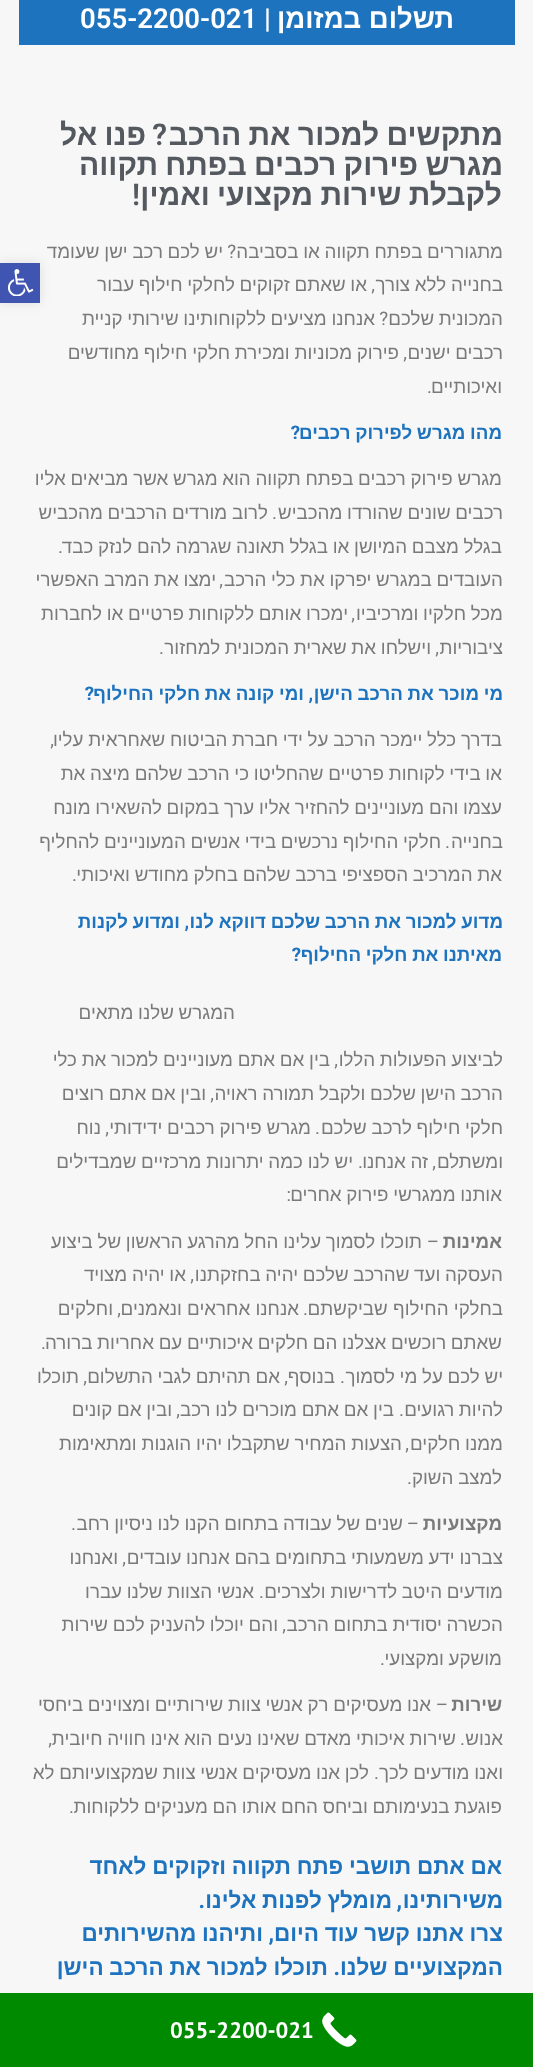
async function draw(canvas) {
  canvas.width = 533
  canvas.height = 2067
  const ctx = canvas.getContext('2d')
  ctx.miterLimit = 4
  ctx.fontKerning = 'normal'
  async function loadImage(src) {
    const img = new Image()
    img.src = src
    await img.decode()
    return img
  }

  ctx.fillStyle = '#f7f7f7'
  ctx.fillRect(0, 0, 533, 2067)
  ctx.fillStyle = '#1e73be'
  ctx.fillRect(19, 0, 496, 45)
  ctx.direction = 'rtl'
  ctx.font = 'bold 27.5px Liberation Sans'
  ctx.fillStyle = '#fff'
  ctx.fillText('תשלום במזומן', 454, 28)
  ctx.font = '600 27.5px Roboto'
  ctx.fillText('|', 271, 28)
  ctx.direction = 'ltr'
  ctx.fillText('055-2200-021', 80, 28)
  ctx.wordSpacing = '-1px'
  ctx.direction = 'rtl'
  ctx.font = 'bold 30px Liberation Sans'
  ctx.fillStyle = '#54595f'
  ctx.fillText('מתקשים למכור את הרכב', 503, 145)
  ctx.wordSpacing = '0px'
  ctx.font = '600 30px Roboto'
  ctx.fillText('?', 167, 145)
  ctx.wordSpacing = '-1px'
  ctx.font = 'bold 30px Liberation Sans'
  ctx.fillText('פנו אל', 146, 145)
  ctx.fillText('מגרש פירוק רכבים בפתח תקווה', 503, 175)
  ctx.fillText('לקבלת שירות מקצועי ואמין', 502, 205)
  ctx.wordSpacing = '0px'
  ctx.font = '600 30px Roboto'
  ctx.fillText('!', 140, 205)
  ctx.wordSpacing = '-0.5px'
  ctx.font = '18.75px Liberation Sans'
  ctx.fillStyle = '#7a7a7a'
  ctx.fillText('מתגוררים בפתח תקווה או בסביבה', 503, 258)
  ctx.wordSpacing = '0px'
  ctx.font = '18.75px Roboto'
  ctx.fillText('?', 236, 258)
  ctx.wordSpacing = '-0.5px'
  ctx.font = '18.75px Liberation Sans'
  ctx.fillText('יש לכם רכב ישן שעומד', 223, 258)
  ctx.fillText('בחנייה ללא צורך', 503, 291)
  ctx.wordSpacing = '0px'
  ctx.font = '18.75px Roboto'
  ctx.fillText(',', 375, 291)
  ctx.wordSpacing = '-0.5px'
  ctx.font = '18.75px Liberation Sans'
  ctx.fillText('או שאתם זקוקים לחלקי חילוף עבור', 367, 291)
  ctx.fillText('המכונית שלכם', 503, 325)
  ctx.wordSpacing = '0px'
  ctx.font = '18.75px Roboto'
  ctx.fillText('?', 388, 325)
  ctx.wordSpacing = '-0.5px'
  ctx.font = '18.75px Liberation Sans'
  ctx.fillText('אנחנו מציעים ללקוחותינו שירותי קניית', 375, 325)
  ctx.fillText('רכבים ישנים', 503, 359)
  ctx.wordSpacing = '0px'
  ctx.font = '18.75px Roboto'
  ctx.fillText(',', 407, 359)
  ctx.wordSpacing = '-0.5px'
  ctx.font = '18.75px Liberation Sans'
  ctx.fillText('פירוק מכוניות ומכירת חלקי חילוף מחודשים', 399, 359)
  ctx.wordSpacing = '0px'
  ctx.fillText('ואיכותיים', 502, 393)
  ctx.font = '18.75px Roboto'
  ctx.fillText('.', 432, 393)
  ctx.wordSpacing = '-0.5px'
  ctx.font = 'bold 18.75px Liberation Sans'
  ctx.fillStyle = '#1e73be'
  ctx.fillText('מהו מגרש לפירוק רכבים', 502, 439)
  ctx.wordSpacing = '0px'
  ctx.font = 'bold 18.75px Roboto'
  ctx.fillText('?', 300, 439)
  ctx.wordSpacing = '-0.5px'
  ctx.font = '18.75px Liberation Sans'
  ctx.fillStyle = '#7a7a7a'
  ctx.fillText('מגרש פירוק רכבים בפתח תקווה הוא מגרש אשר מביאים אליו', 502, 485)
  ctx.fillText('רכבים שונים שהורדו מהכביש', 503, 519)
  ctx.wordSpacing = '0px'
  ctx.font = '18.75px Roboto'
  ctx.fillText('.', 277, 519)
  ctx.wordSpacing = '-0.5px'
  ctx.font = '18.75px Liberation Sans'
  ctx.fillText('לרוב מורדים הרכבים מהכביש', 268, 519)
  ctx.fillText('בגלל מצבם המיושן או בגלל תאונה שגרמה להם לנזק כבד', 502, 553)
  ctx.wordSpacing = '0px'
  ctx.font = '18.75px Roboto'
  ctx.fillText('.', 63, 553)
  ctx.wordSpacing = '-0.5px'
  ctx.font = '18.75px Liberation Sans'
  ctx.fillText('העובדים במגרש יפרקו את כלי הרכב', 503, 586)
  ctx.wordSpacing = '0px'
  ctx.font = '18.75px Roboto'
  ctx.fillText(',', 223, 586)
  ctx.wordSpacing = '-0.5px'
  ctx.font = '18.75px Liberation Sans'
  ctx.fillText('ימצו את המרב האפשרי', 216, 586)
  ctx.fillText('מכל חלקיו ומרכיביו', 503, 620)
  ctx.wordSpacing = '0px'
  ctx.font = '18.75px Roboto'
  ctx.fillText(',', 355, 620)
  ctx.wordSpacing = '-0.5px'
  ctx.font = '18.75px Liberation Sans'
  ctx.fillText('ימכרו אותם ללקוחות פרטיים או לחברות', 348, 620)
  ctx.wordSpacing = '0px'
  ctx.fillText('ציבוריות', 503, 654)
  ctx.font = '18.75px Roboto'
  ctx.fillText(',', 439, 654)
  ctx.wordSpacing = '-0.5px'
  ctx.font = '18.75px Liberation Sans'
  ctx.fillText('וישלחו את שארית המכונית למחזור', 431, 654)
  ctx.wordSpacing = '0px'
  ctx.font = '18.75px Roboto'
  ctx.fillText('.', 164, 654)
  ctx.wordSpacing = '-0.5px'
  ctx.font = 'bold 18.75px Liberation Sans'
  ctx.fillStyle = '#1e73be'
  ctx.fillText('מי מוכר את הרכב הישן', 503, 700)
  ctx.wordSpacing = '0px'
  ctx.font = 'bold 18.75px Roboto'
  ctx.fillText(',', 313, 700)
  ctx.wordSpacing = '-0.5px'
  ctx.font = 'bold 18.75px Liberation Sans'
  ctx.fillText('ומי קונה את חלקי החילוף', 304, 700)
  ctx.wordSpacing = '0px'
  ctx.font = 'bold 18.75px Roboto'
  ctx.fillText('?', 94, 700)
  ctx.wordSpacing = '-0.5px'
  ctx.font = '18.75px Liberation Sans'
  ctx.fillStyle = '#7a7a7a'
  ctx.fillText('בדרך כלל יימכר הרכב על ידי חברת הביטוח שאחראית עליו', 502, 746)
  ctx.wordSpacing = '0px'
  ctx.font = '18.75px Roboto'
  ctx.fillText(',', 54, 746)
  ctx.wordSpacing = '-0.5px'
  ctx.font = '18.75px Liberation Sans'
  ctx.fillText('או בידי לקוחות פרטיים שהחליטו כי הרכב שלהם מיצה את', 502, 780)
  ctx.fillText('עצמו והם מעוניינים להחזיר אליו ערך במקום להשאירו מונח', 502, 814)
  ctx.wordSpacing = '0px'
  ctx.fillText('בחנייה', 503, 848)
  ctx.font = '18.75px Roboto'
  ctx.fillText('.', 450, 848)
  ctx.wordSpacing = '-0.5px'
  ctx.font = '18.75px Liberation Sans'
  ctx.fillText('חלקי החילוף נרכשים בידי אנשים המעוניינים להחליף', 441, 848)
  ctx.fillText('את המרכיב הספציפי ברכב שלהם בחלק מחודש ואיכותי', 502, 881)
  ctx.wordSpacing = '0px'
  ctx.font = '18.75px Roboto'
  ctx.fillText('.', 77, 881)
  ctx.wordSpacing = '-0.5px'
  ctx.font = 'bold 18.75px Liberation Sans'
  ctx.fillStyle = '#1e73be'
  ctx.fillText('מדוע למכור את הרכב שלכם דווקא לנו', 503, 928)
  ctx.wordSpacing = '0px'
  ctx.font = 'bold 18.75px Roboto'
  ctx.fillText(',', 189, 928)
  ctx.wordSpacing = '-0.5px'
  ctx.font = 'bold 18.75px Liberation Sans'
  ctx.fillText('ומדוע לקנות', 180, 928)
  ctx.fillText('מאיתנו את חלקי החילוף', 502, 961)
  ctx.wordSpacing = '0px'
  ctx.font = 'bold 18.75px Roboto'
  ctx.fillText('?', 301, 961)
  ctx.wordSpacing = '-0.5px'
  ctx.font = '18.75px Liberation Sans'
  ctx.fillStyle = '#7a7a7a'
  ctx.fillText('המגרש שלנו מתאים', 235, 1019)
  ctx.fillText('לביצוע הפעולות הללו', 503, 1066)
  ctx.wordSpacing = '0px'
  ctx.font = '18.75px Roboto'
  ctx.fillText(',', 338, 1066)
  ctx.wordSpacing = '-0.5px'
  ctx.font = '18.75px Liberation Sans'
  ctx.fillText('בין אם אתם מעוניינים למכור את כלי', 330, 1066)
  ctx.fillText('הרכב הישן שלכם ולקבל תמורה ראויה', 503, 1100)
  ctx.wordSpacing = '0px'
  ctx.font = '18.75px Roboto'
  ctx.fillText(',', 214, 1100)
  ctx.wordSpacing = '-0.5px'
  ctx.font = '18.75px Liberation Sans'
  ctx.fillText('ובין אם אתם רוצים', 206, 1100)
  ctx.fillText('חלקי חילוף לרכב שלכם', 503, 1134)
  ctx.wordSpacing = '0px'
  ctx.font = '18.75px Roboto'
  ctx.fillText('.', 320, 1134)
  ctx.wordSpacing = '-0.5px'
  ctx.font = '18.75px Liberation Sans'
  ctx.fillText('מגרש פירוק רכבים ידידותי', 311, 1134)
  ctx.wordSpacing = '0px'
  ctx.font = '18.75px Roboto'
  ctx.fillText(',', 109, 1134)
  ctx.font = '18.75px Liberation Sans'
  ctx.fillText('נוח', 101, 1134)
  ctx.fillText('ומשתלם', 503, 1168)
  ctx.font = '18.75px Roboto'
  ctx.fillText(',', 436, 1168)
  ctx.wordSpacing = '-0.5px'
  ctx.font = '18.75px Liberation Sans'
  ctx.fillText('זה אנחנו', 428, 1168)
  ctx.wordSpacing = '0px'
  ctx.font = '18.75px Roboto'
  ctx.fillText('.', 363, 1168)
  ctx.wordSpacing = '-0.5px'
  ctx.font = '18.75px Liberation Sans'
  ctx.fillText('יש לנו כמה יתרונות מרכזיים שמבדילים', 353, 1168)
  ctx.fillText('אותנו ממגרשי פירוק אחרים', 502, 1201)
  ctx.wordSpacing = '0px'
  ctx.font = '18.75px Roboto'
  ctx.fillText(':', 291, 1201)
  ctx.font = 'bold 18.75px Liberation Sans'
  ctx.fillText('אמינות', 502, 1248)
  ctx.font = '18.75px Roboto'
  ctx.fillText('–', 439, 1248)
  ctx.wordSpacing = '-0.5px'
  ctx.font = '18.75px Liberation Sans'
  ctx.fillText('תוכלו לסמוך עלינו החל מהרגע הראשון של ביצוע', 422, 1248)
  ctx.fillText('העסקה ועד שהרכב שלכם יהיה בחזקתנו', 503, 1281)
  ctx.fillText('או יהיה מצויד', 186, 1281)
  ctx.wordSpacing = '0px'
  ctx.font = '18.75px Roboto'
  ctx.fillText(',', 194, 1281)
  ctx.font = '18.75px Liberation Sans'
  ctx.fillText('בחלקי החילוף שביקשתם', 503, 1315)
  ctx.fillText('אנחנו אחראים ונאמנים', 299, 1315)
  ctx.fillText('וחלקים', 113, 1315)
  ctx.font = '18.75px Roboto'
  ctx.fillText('.', 308, 1315)
  ctx.fillText(',', 121, 1315)
  ctx.wordSpacing = '-0.5px'
  ctx.font = '18.75px Liberation Sans'
  ctx.fillText('שאתם רוכשים אצלנו הם חלקים איכותיים עם אחריות ברורה', 502, 1349)
  ctx.wordSpacing = '0px'
  ctx.font = '18.75px Roboto'
  ctx.fillText('.', 46, 1349)
  ctx.wordSpacing = '-0.5px'
  ctx.font = '18.75px Liberation Sans'
  ctx.fillText('יש לכם על מי לסמוך', 503, 1383)
  ctx.wordSpacing = '0px'
  ctx.font = '18.75px Roboto'
  ctx.fillText('.', 345, 1383)
  ctx.font = '18.75px Liberation Sans'
  ctx.fillText('בנוסף', 335, 1383)
  ctx.font = '18.75px Roboto'
  ctx.fillText(',', 288, 1383)
  ctx.wordSpacing = '-0.5px'
  ctx.font = '18.75px Liberation Sans'
  ctx.fillText('אם תהיתם לגבי התשלום', 280, 1383)
  ctx.wordSpacing = '0px'
  ctx.font = '18.75px Roboto'
  ctx.fillText(',', 87, 1383)
  ctx.font = '18.75px Liberation Sans'
  ctx.fillText('תוכלו', 79, 1383)
  ctx.wordSpacing = '-0.5px'
  ctx.fillText('להיות רגועים', 503, 1416)
  ctx.wordSpacing = '0px'
  ctx.font = '18.75px Roboto'
  ctx.fillText('.', 404, 1416)
  ctx.wordSpacing = '-0.5px'
  ctx.font = '18.75px Liberation Sans'
  ctx.fillText('בין אם אתם מוכרים לנו רכב', 394, 1416)
  ctx.wordSpacing = '0px'
  ctx.font = '18.75px Roboto'
  ctx.fillText(',', 180, 1416)
  ctx.wordSpacing = '-0.5px'
  ctx.font = '18.75px Liberation Sans'
  ctx.fillText('ובין אם קונים', 172, 1416)
  ctx.fillText('ממנו חלקים', 503, 1450)
  ctx.wordSpacing = '0px'
  ctx.font = '18.75px Roboto'
  ctx.fillText(',', 409, 1450)
  ctx.wordSpacing = '-0.5px'
  ctx.font = '18.75px Liberation Sans'
  ctx.fillText('הצעות המחיר שתקבלו יהיו הוגנות ומתאימות', 402, 1450)
  ctx.fillText('למצב השוק', 502, 1484)
  ctx.wordSpacing = '0px'
  ctx.font = '18.75px Roboto'
  ctx.fillText('.', 412, 1484)
  ctx.font = 'bold 18.75px Liberation Sans'
  ctx.fillText('מקצועיות', 502, 1530)
  ctx.font = '18.75px Roboto'
  ctx.fillText('–', 419, 1530)
  ctx.wordSpacing = '-0.5px'
  ctx.font = '18.75px Liberation Sans'
  ctx.fillText('שנים של עבודה בתחום הקנו לנו ניסיון רחב', 403, 1530)
  ctx.wordSpacing = '0px'
  ctx.font = '18.75px Roboto'
  ctx.fillText('.', 76, 1530)
  ctx.wordSpacing = '-0.5px'
  ctx.font = '18.75px Liberation Sans'
  ctx.fillText('צברנו ידע משמעותי בתחומים בהם אנחנו עובדים', 503, 1564)
  ctx.wordSpacing = '0px'
  ctx.font = '18.75px Roboto'
  ctx.fillText(',', 126, 1564)
  ctx.font = '18.75px Liberation Sans'
  ctx.fillText('ואנחנו', 118, 1564)
  ctx.wordSpacing = '-0.5px'
  ctx.fillText('מודעים היטב לדרישות ולצרכים', 503, 1598)
  ctx.wordSpacing = '0px'
  ctx.font = '18.75px Roboto'
  ctx.fillText('.', 264, 1598)
  ctx.wordSpacing = '-0.5px'
  ctx.font = '18.75px Liberation Sans'
  ctx.fillText('אנשי הצוות שלנו עברו', 254, 1598)
  ctx.fillText('הכשרה יסודית בתחום הרכב', 503, 1631)
  ctx.wordSpacing = '0px'
  ctx.font = '18.75px Roboto'
  ctx.fillText(',', 286, 1631)
  ctx.wordSpacing = '-0.5px'
  ctx.font = '18.75px Liberation Sans'
  ctx.fillText('והם יוכלו להעניק לכם שירות', 278, 1631)
  ctx.fillText('מושקע ומקצועי', 502, 1665)
  ctx.wordSpacing = '0px'
  ctx.font = '18.75px Roboto'
  ctx.fillText('.', 385, 1665)
  ctx.font = 'bold 18.75px Liberation Sans'
  ctx.fillText('שירות', 502, 1711)
  ctx.font = '18.75px Roboto'
  ctx.fillText('–', 448, 1711)
  ctx.wordSpacing = '-0.5px'
  ctx.font = '18.75px Liberation Sans'
  ctx.fillText('אנו מעסיקים רק אנשי צוות שירותיים ומצוינים ביחסי', 431, 1711)
  ctx.wordSpacing = '0px'
  ctx.fillText('אנוש', 503, 1745)
  ctx.font = '18.75px Roboto'
  ctx.fillText('.', 465, 1745)
  ctx.wordSpacing = '-0.5px'
  ctx.font = '18.75px Liberation Sans'
  ctx.fillText('שירות איכותי מאדם שאינו נעים הוא אינו חוויה חיובית', 456, 1745)
  ctx.wordSpacing = '0px'
  ctx.font = '18.75px Roboto'
  ctx.fillText(',', 52, 1745)
  ctx.wordSpacing = '-0.5px'
  ctx.font = '18.75px Liberation Sans'
  ctx.fillText('ואנו מודעים לכך', 503, 1779)
  ctx.wordSpacing = '0px'
  ctx.font = '18.75px Roboto'
  ctx.fillText('.', 379, 1779)
  ctx.wordSpacing = '-0.5px'
  ctx.font = '18.75px Liberation Sans'
  ctx.fillText('לכן אנו מעסיקים אנשי צוות שמקצועיותם לא', 369, 1779)
  ctx.fillText('פוגעת בנעימותם וביחס החם אותו הם מעניקים ללקוחות', 502, 1813)
  ctx.wordSpacing = '0px'
  ctx.font = '18.75px Roboto'
  ctx.fillText('.', 74, 1813)
  ctx.wordSpacing = '-0.5px'
  ctx.font = 'bold 22.5px Liberation Sans'
  ctx.fillStyle = '#1e73be'
  ctx.fillText('אם אתם תושבי פתח תקווה וזקוקים לאחד', 502, 1874)
  ctx.wordSpacing = '0px'
  ctx.fillText('משירותינו', 503, 1908)
  ctx.font = 'bold 22.5px Roboto'
  ctx.fillText(',', 402, 1908)
  ctx.wordSpacing = '-0.5px'
  ctx.font = 'bold 22.5px Liberation Sans'
  ctx.fillText('מומלץ לפנות אלינו', 392, 1908)
  ctx.wordSpacing = '0px'
  ctx.font = 'bold 22.5px Roboto'
  ctx.fillText('.', 205, 1908)
  ctx.wordSpacing = '-0.5px'
  ctx.font = 'bold 22.5px Liberation Sans'
  ctx.fillText('צרו אתנו קשר עוד היום', 503, 1941)
  ctx.wordSpacing = '0px'
  ctx.font = 'bold 22.5px Roboto'
  ctx.fillText(',', 274, 1941)
  ctx.wordSpacing = '-0.5px'
  ctx.font = 'bold 22.5px Liberation Sans'
  ctx.fillText('ותיהנו מהשירותים', 263, 1941)
  ctx.fillText('המקצועיים שלנו', 503, 1975)
  ctx.wordSpacing = '0px'
  ctx.font = 'bold 22.5px Roboto'
  ctx.fillText('.', 340, 1975)
  ctx.wordSpacing = '-0.5px'
  ctx.font = 'bold 22.5px Liberation Sans'
  ctx.fillText('תוכלו למכור את הרכב הישן', 328, 1975)
  ctx.fillStyle = '#0000001a'
  ctx.filter = 'blur(6px)'
  ctx.beginPath()
  ctx.rect(0, 263, 40, 40)
  ctx.fill()
  ctx.filter = 'none'
  ctx.fillStyle = '#4054b2'
  ctx.fillRect(0, 263, 40, 40)
  ctx.drawImage(await loadImage('image0.png'), 7, 269, 27, 27)
  ctx.fillStyle = '#008a00'
  ctx.fillRect(0, 1993, 533, 74)
  ctx.drawImage(await loadImage('image1.png'), 322, 2012, 35, 35)
  ctx.wordSpacing = '0px'
  ctx.direction = 'ltr'
  ctx.font = 'bold 22.5px PT Sans'
  ctx.fillStyle = '#fff'
  ctx.fillText('055-2200-021', 170, 2038)
}

draw(document.querySelector('canvas'))
